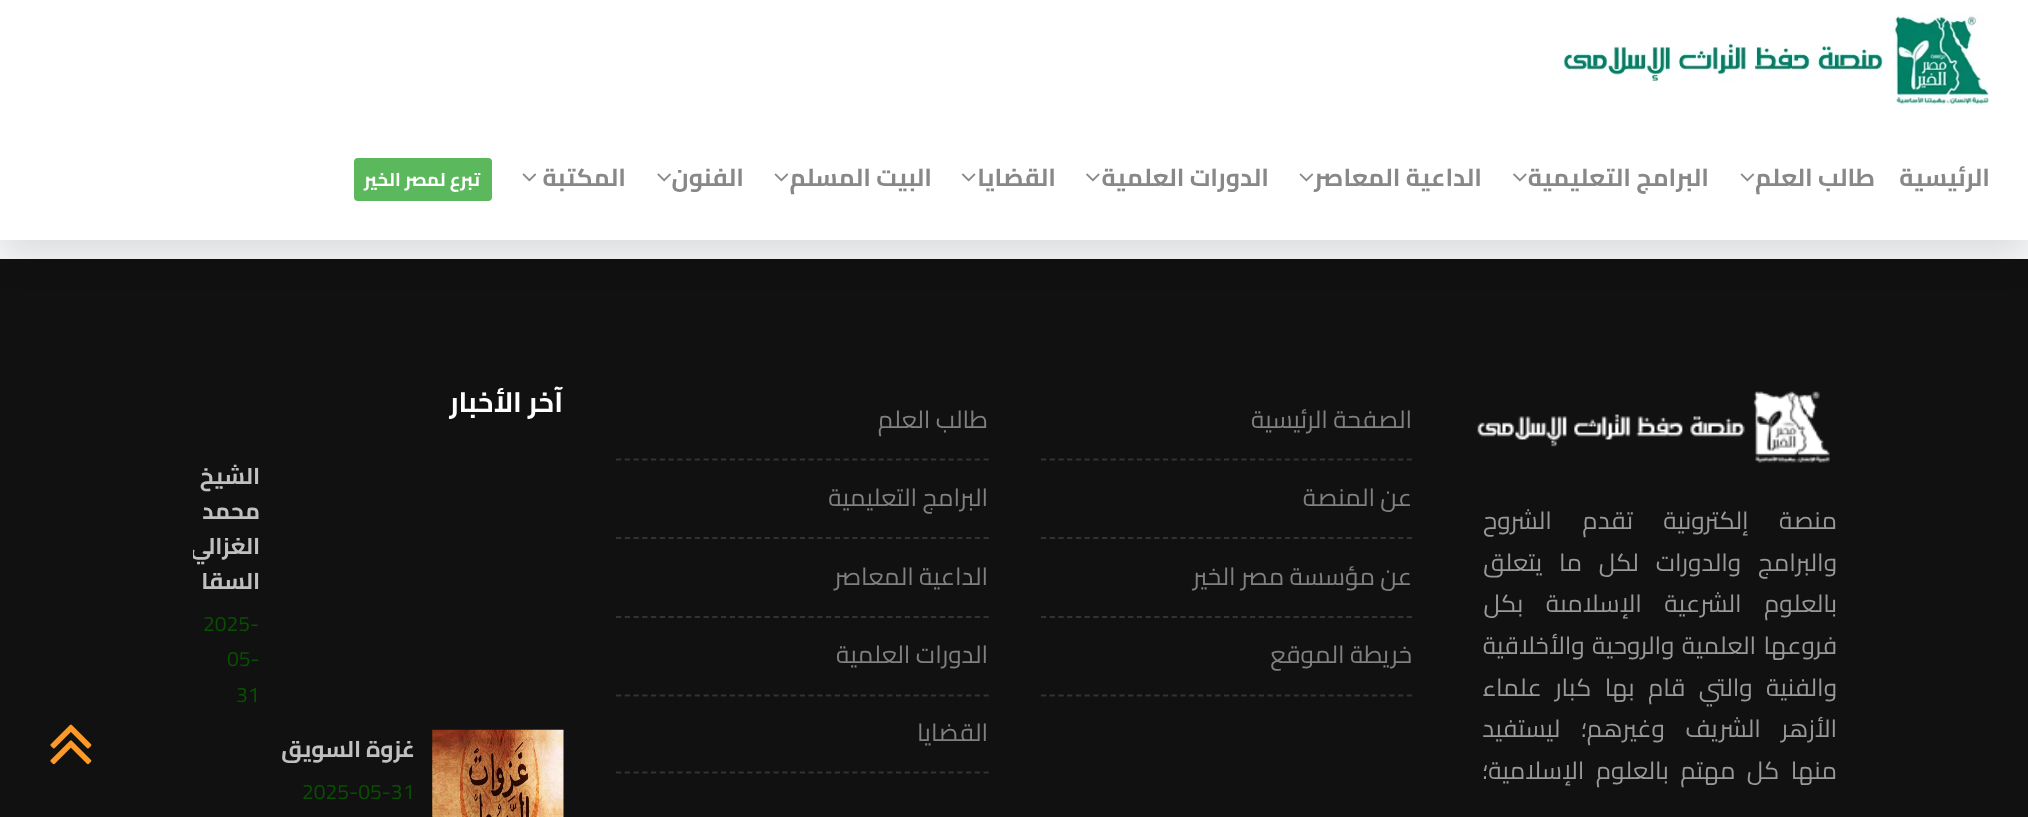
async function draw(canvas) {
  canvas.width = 2028
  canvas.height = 817
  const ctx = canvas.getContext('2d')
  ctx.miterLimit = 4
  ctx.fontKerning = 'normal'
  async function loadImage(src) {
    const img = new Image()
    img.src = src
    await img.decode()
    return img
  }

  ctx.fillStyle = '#f7f8fa'
  ctx.fillRect(0, 0, 2028, 817)
  ctx.fillStyle = '#111'
  ctx.fillRect(0, 259, 2028, 558)
  ctx.fillStyle = '#0000001a'
  ctx.filter = 'blur(17.5px)'
  ctx.beginPath()
  ctx.rect(0, 18, 2028, 239)
  ctx.fill()
  ctx.filter = 'none'
  ctx.fillStyle = '#fff'
  ctx.fillRect(0, 0, 2028, 240)
  ctx.drawImage(await loadImage('image0.png'), 1563, 14, 426, 91)
  ctx.direction = 'rtl'
  ctx.font = 'bold 24.5px Cairo'
  ctx.fillStyle = '#888'
  ctx.fillText('الرئيسية', 1990, 186)
  ctx.fillText('طالب العلم', 1875, 186)
  ctx.drawImage(await loadImage('image1.png'), 1740, 173, 15, 9)
  ctx.fillText('البرامج التعليمية', 1709, 186)
  ctx.drawImage(await loadImage('image2.png'), 1513, 173, 14, 9)
  ctx.fillText('الداعية المعاصر', 1482, 186)
  ctx.drawImage(await loadImage('image1.png'), 1299, 173, 15, 9)
  ctx.fillText('الدورات العلمية', 1269, 186)
  ctx.drawImage(await loadImage('image2.png'), 1086, 173, 14, 9)
  ctx.fillText('القضايا', 1056, 186)
  ctx.drawImage(await loadImage('image3.png'), 961, 173, 15, 9)
  ctx.fillText('البيت المسلم', 932, 186)
  ctx.drawImage(await loadImage('image1.png'), 774, 173, 15, 9)
  ctx.fillText('الفنون', 744, 186)
  ctx.drawImage(await loadImage('image4.png'), 657, 173, 14, 9)
  ctx.fillText('المكتبة', 626, 186)
  ctx.drawImage(await loadImage('image1.png'), 522, 173, 15, 9)
  ctx.fillStyle = '#5cb85c'
  ctx.beginPath()
  ctx.roundRect(354, 158, 138, 43, 4)
  ctx.fill()
  ctx.font = 'bold 18.5px Cairo'
  ctx.fillStyle = '#fff'
  ctx.fillText('تبرع لمصر الخير', 480, 186)
  ctx.drawImage(await loadImage('image5.png'), 1477, 391, 353, 72)
  ctx.wordSpacing = '25px'
  ctx.font = '24.5px Cairo'
  ctx.fillStyle = '#999'
  ctx.fillText('منصة إلكترونية تقدم الشروح', 1837, 529)
  ctx.wordSpacing = '11.5px'
  ctx.fillText('والبرامج والدورات لكل ما يتعلق', 1837, 571)
  ctx.wordSpacing = '17px'
  ctx.fillText('بالعلوم الشرعية الإسلامىة بكل', 1837, 612)
  ctx.wordSpacing = '2px'
  ctx.fillText('فروعها العلمية والروحية والأخلاقية', 1837, 654)
  ctx.wordSpacing = '8px'
  ctx.fillText('والفنية والتي قام بها كبار علماء', 1837, 696)
  ctx.wordSpacing = '15px'
  ctx.fillText('الأزهر الشريف وغيرهم؛ ليستفيد', 1837, 737)
  ctx.wordSpacing = '6px'
  ctx.fillText('منها كل مهتم بالعلوم الإسلامية؛', 1837, 779)
  ctx.beginPath()
  ctx.moveTo(1041, 459.5)
  ctx.lineTo(1412, 459.5)
  ctx.strokeStyle = '#333'
  ctx.lineWidth = 1.8
  ctx.setLineDash([5.25, 3.46])
  ctx.stroke()
  ctx.wordSpacing = '0px'
  ctx.fillStyle = '#808080'
  ctx.fillText('الصفحة الرئيسية', 1412, 428)
  ctx.beginPath()
  ctx.moveTo(1041, 538)
  ctx.lineTo(1412, 538)
  ctx.stroke()
  ctx.fillText('عن المنصة', 1412, 506)
  ctx.beginPath()
  ctx.moveTo(1041, 617)
  ctx.lineTo(1412, 617)
  ctx.stroke()
  ctx.fillText('عن مؤسسة مصر الخير', 1412, 585)
  ctx.beginPath()
  ctx.moveTo(1041, 695.5)
  ctx.lineTo(1412, 695.5)
  ctx.stroke()
  ctx.fillText('خريطة الموقع', 1412, 663)
  ctx.beginPath()
  ctx.moveTo(616, 459.5)
  ctx.lineTo(989, 459.5)
  ctx.setLineDash([5.25, 3.5])
  ctx.stroke()
  ctx.fillText('طالب العلم', 988, 428)
  ctx.beginPath()
  ctx.moveTo(616, 538)
  ctx.lineTo(989, 538)
  ctx.stroke()
  ctx.fillText('البرامج التعليمية', 988, 506)
  ctx.beginPath()
  ctx.moveTo(616, 617)
  ctx.lineTo(989, 617)
  ctx.stroke()
  ctx.fillText('الداعية المعاصر', 988, 585)
  ctx.beginPath()
  ctx.moveTo(616, 695.5)
  ctx.lineTo(989, 695.5)
  ctx.stroke()
  ctx.fillText('الدورات العلمية', 988, 663)
  ctx.beginPath()
  ctx.moveTo(616, 772.5)
  ctx.lineTo(989, 772.5)
  ctx.stroke()
  ctx.fillText('القضايا', 988, 741)
  ctx.font = 'bold 28px Cairo'
  ctx.fillStyle = '#fff'
  ctx.fillText('آخر الأخبار', 563, 412)
  ctx.font = 'bold 22.75px Cairo'
  ctx.fillStyle = '#c0c0c0'
  ctx.fillText('الشيخ', 260, 484)
  ctx.fillText('محمد', 260, 519)
  ctx.save()
  ctx.beginPath()
  ctx.rect(193, 457, 66, 255)
  ctx.clip()
  ctx.fillText('الغزالي', 260, 554)
  ctx.restore()
  ctx.fillText('السقا', 260, 589)
  ctx.direction = 'ltr'
  ctx.font = '21px Cairo'
  ctx.fillStyle = '#094f00'
  ctx.fillText('2025-', 203, 631)
  ctx.fillText('05-', 227, 666)
  ctx.fillText('31', 236, 702)
  ctx.drawImage(await loadImage('image6.png'), 432, 729, 132, 88)
  ctx.direction = 'rtl'
  ctx.font = 'bold 22.75px Cairo'
  ctx.fillStyle = '#c0c0c0'
  ctx.fillText('غزوة السويق', 415, 757)
  ctx.direction = 'ltr'
  ctx.font = '21px Cairo'
  ctx.fillStyle = '#094f00'
  ctx.fillText('2025-05-31', 302, 799)
  ctx.drawImage(await loadImage('image7.png'), 50, 724, 42, 41)
}

draw(document.querySelector('canvas'))
